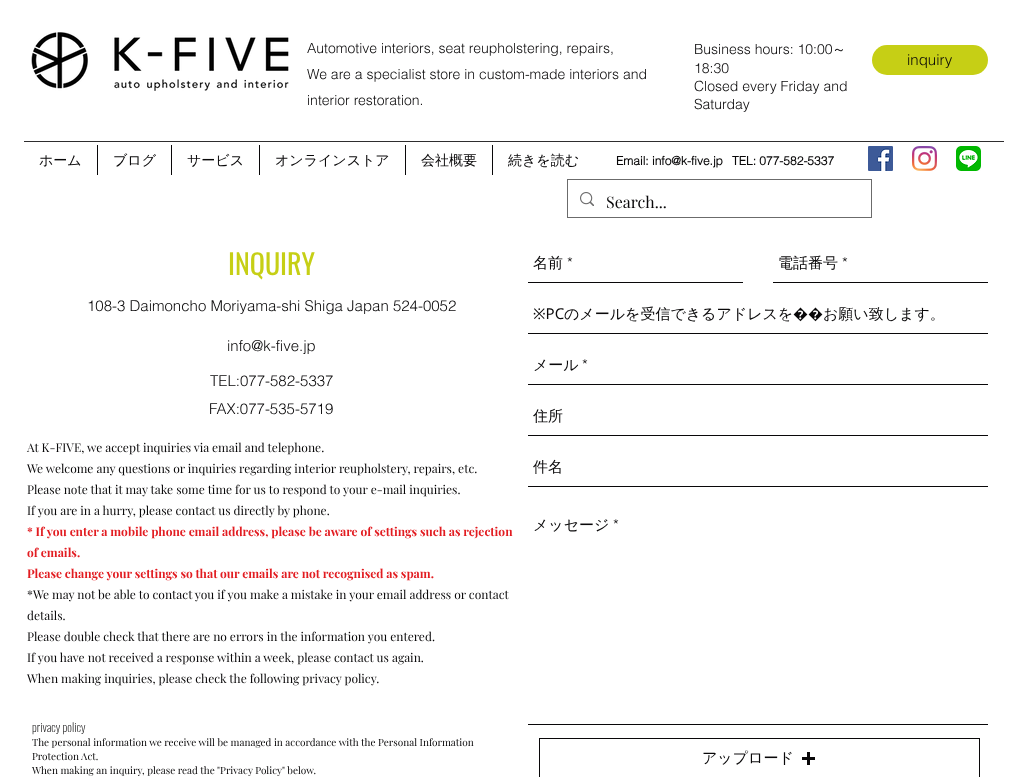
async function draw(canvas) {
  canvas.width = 1027
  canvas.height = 777
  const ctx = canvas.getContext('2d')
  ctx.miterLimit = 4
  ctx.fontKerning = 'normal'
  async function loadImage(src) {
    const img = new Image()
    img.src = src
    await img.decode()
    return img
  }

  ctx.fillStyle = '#fff'
  ctx.fillRect(0, 0, 1027, 777)
  ctx.drawImage(await loadImage('image0.png'), 31, 32, 258, 59)
  ctx.font = '300 14px helvetica'
  ctx.fillStyle = '#090809'
  ctx.fillText('Automotive interiors, seat reupholstering, repairs,', 307, 53)
  ctx.fillText('We are a specialist store in custom-made interiors and', 307, 79)
  ctx.fillText('interior restoration.', 307, 105)
  ctx.fillText('Business hours: 10:00', 694, 54)
  ctx.font = '500 14px WenQuanYi Zen Hei'
  ctx.fillText('～', 832, 54)
  ctx.font = '300 14px helvetica'
  ctx.fillText('18:30', 694, 73)
  ctx.fillText('Closed every Friday and', 694, 91)
  ctx.fillText('Saturday', 694, 109)
  ctx.fillStyle = '#c6cf15'
  ctx.beginPath()
  ctx.roundRect(872, 45, 116, 30, 15)
  ctx.fill()
  ctx.font = '300 15px helvetica'
  ctx.fillStyle = '#090809'
  ctx.fillText('inquiry', 907, 65)
  ctx.fillStyle = '#2e2d2e'
  ctx.fillRect(24, 141, 980, 1)
  ctx.font = '500 14px WenQuanYi Zen Hei'
  ctx.fillStyle = '#090809'
  ctx.fillText('ホーム', 39, 165)
  ctx.fillRect(97, 145, 1, 30)
  ctx.fillText('ブログ', 113, 165)
  ctx.fillRect(171, 145, 1, 30)
  ctx.fillText('サービス', 187, 165)
  ctx.fillRect(259, 145, 1, 30)
  ctx.fillText('オンラインストア', 275, 165)
  ctx.fillRect(405, 145, 1, 30)
  ctx.fillText('会社概要', 421, 165)
  ctx.fillRect(492, 145, 1, 30)
  ctx.fillText('続きを読む', 508, 165)
  ctx.font = 'bold 12px helvetica'
  ctx.fillText('Email: info@k-five.jp', 616, 165)
  ctx.fillText('TEL: 077-582-5337', 732, 165)
  ctx.drawImage(await loadImage('image1.png'), 868, 146, 25, 25)
  ctx.drawImage(await loadImage('image2.png'), 912, 146, 25, 25)
  ctx.drawImage(await loadImage('image3.png'), 956, 146, 25, 25)
  ctx.strokeStyle = '#6b6b6b'
  ctx.strokeRect(567.5, 179.5, 304, 38)
  ctx.drawImage(await loadImage('image4.png'), 580, 192, 14, 14)
  ctx.font = '16px Playfair Display'
  ctx.fillText('Search...', 606, 208)
  ctx.font = '28px Oswald'
  ctx.fillStyle = '#c6cf15'
  ctx.fillText('INQUIRY', 228, 275)
  ctx.font = '300 15px helvetica'
  ctx.fillStyle = '#090809'
  ctx.fillText('108-3 Daimoncho Moriyama-shi Shiga Japan 524-0052', 87, 311)
  ctx.fillText('info@k-five.jp', 227, 351)
  ctx.fillText('TEL:077-582-5337', 210, 386)
  ctx.fillText('FAX:077-535-5719', 209, 414)
  ctx.font = '12px Playfair Display'
  ctx.fillText('At K-FIVE, we accept inquiries via email and telephone.', 27, 452)
  ctx.fillText('We welcome any questions or inquiries regarding interior reupholstery, repairs, etc.', 27, 473)
  ctx.fillText('Please note that it may take some time for us to respond to your e-mail inquiries.', 27, 494)
  ctx.fillText('If you are in a hurry, please contact us directly by phone.', 27, 515)
  ctx.font = 'bold 12px Playfair Display'
  ctx.fillStyle = '#e21c21'
  ctx.fillText('* If you enter a mobile phone email address, please be aware of settings such as rejection', 27, 536)
  ctx.fillText('of emails.', 27, 557)
  ctx.fillText('Please change your settings so that our emails are not recognised as spam.', 27, 578)
  ctx.font = '12px Playfair Display'
  ctx.fillStyle = '#090809'
  ctx.fillText('*We may not be able to contact you if you make a mistake in your email address or contact', 27, 599)
  ctx.fillText('details.', 27, 620)
  ctx.fillText('Please double check that there are no errors in the information you entered.', 27, 641)
  ctx.fillText('If you have not received a response within a week, please contact us again.', 27, 662)
  ctx.fillText('When making inquiries, please check the following privacy policy.', 27, 683)
  ctx.font = '200 12px Oswald'
  ctx.fillText('privacy policy', 32, 732)
  ctx.font = '10px Playfair Display'
  ctx.fillText('The personal information we receive will be managed in accordance with the Personal Information', 32, 746)
  ctx.fillText('Protection Act.', 32, 760)
  ctx.fillText('When making an inquiry, please read the "Privacy Policy" below.', 32, 774)
  ctx.fillRect(528, 282, 215, 1)
  ctx.font = '500 15px WenQuanYi Zen Hei'
  ctx.fillText('名前', 533, 268)
  ctx.font = '300 15px helvetica'
  ctx.fillText('*', 567, 268)
  ctx.fillRect(773, 282, 215, 1)
  ctx.font = '500 15px WenQuanYi Zen Hei'
  ctx.fillText('電話番号', 778, 268)
  ctx.font = '300 15px helvetica'
  ctx.fillText('*', 842, 268)
  ctx.fillRect(528, 333, 460, 1)
  ctx.font = '15px Noto Sans'
  ctx.fillText('※PC', 533, 319)
  ctx.font = '500 15px WenQuanYi Zen Hei'
  ctx.fillText('のメールを受信できるアドレスを', 564, 319)
  ctx.font = '15px Noto Sans'
  ctx.fillText('��', 793, 319)
  ctx.font = '500 15px WenQuanYi Zen Hei'
  ctx.fillText('お願い致します。', 823, 319)
  ctx.fillRect(528, 384, 460, 1)
  ctx.fillText('メール', 533, 370)
  ctx.font = '300 15px helvetica'
  ctx.fillText('*', 582, 370)
  ctx.fillRect(528, 435, 460, 1)
  ctx.font = '500 15px WenQuanYi Zen Hei'
  ctx.fillText('住所', 533, 421)
  ctx.fillRect(528, 486, 460, 1)
  ctx.fillText('件名', 533, 472)
  ctx.fillRect(528, 724, 460, 1)
  ctx.fillText('メッセージ', 533, 530)
  ctx.font = '300 15px helvetica'
  ctx.fillText('*', 613, 530)
  ctx.strokeStyle = '#090809'
  ctx.strokeRect(539.5, 738.5, 440, 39)
  ctx.font = '500 15px WenQuanYi Zen Hei'
  ctx.fillText('アップロード', 702, 763)
  ctx.fillRect(807, 752, 3, 13)
  ctx.fillRect(802, 757, 13, 3)
}

draw(document.querySelector('canvas'))
